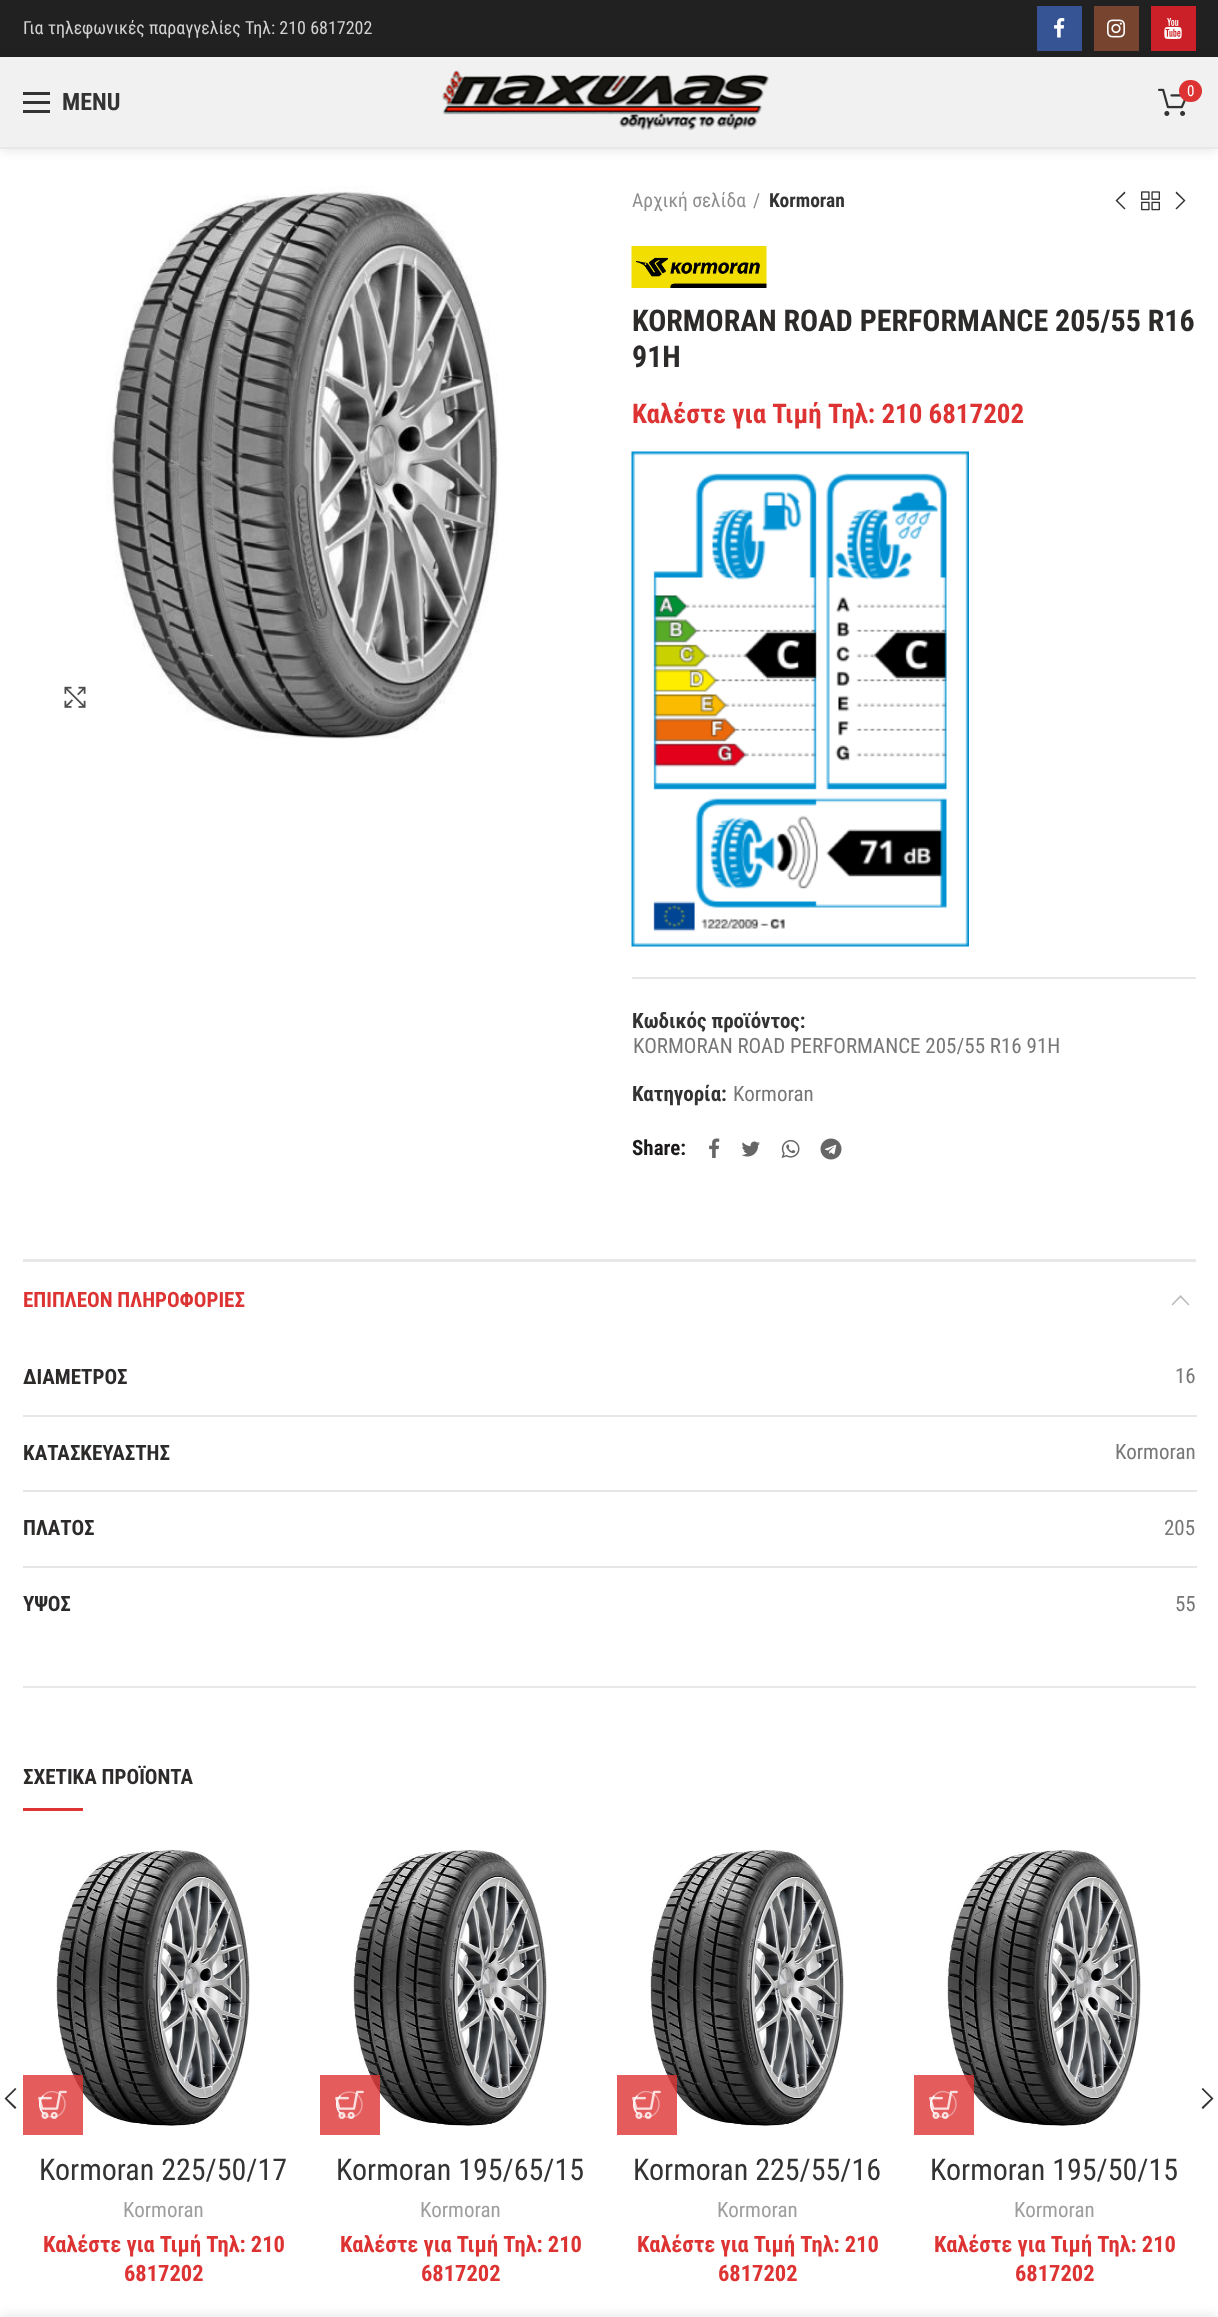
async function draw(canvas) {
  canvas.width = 1218
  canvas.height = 2317
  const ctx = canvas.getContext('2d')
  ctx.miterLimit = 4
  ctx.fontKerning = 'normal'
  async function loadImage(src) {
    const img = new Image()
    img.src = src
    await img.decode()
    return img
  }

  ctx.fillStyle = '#fff'
  ctx.fillRect(0, 0, 1218, 2317)
  ctx.fillStyle = '#212121'
  ctx.fillRect(0, 0, 1218, 57)
  ctx.font = '18px Roboto Condensed'
  ctx.fillStyle = '#d3d3d3'
  ctx.fillText('Για τηλεφωνικές παραγγελίες Τηλ: 210 6817202', 23, 34)
  ctx.save()
  ctx.beginPath()
  ctx.moveTo(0, 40)
  ctx.lineTo(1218, 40)
  ctx.lineTo(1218, 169)
  ctx.lineTo(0, 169)
  ctx.closePath()
  ctx.moveTo(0, 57)
  ctx.lineTo(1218, 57)
  ctx.lineTo(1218, 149)
  ctx.lineTo(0, 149)
  ctx.closePath()
  ctx.clip('evenodd')
  ctx.fillStyle = '#0000001a'
  ctx.filter = 'blur(6px)'
  ctx.beginPath()
  ctx.rect(0, 59, 1218, 91)
  ctx.fill()
  ctx.filter = 'none'
  ctx.restore()
  ctx.fillStyle = '#365493'
  ctx.fillRect(1037, 6, 45, 45)
  ctx.drawImage(await loadImage('image0.png'), 1054, 18, 11, 20)
  ctx.fillStyle = '#774430'
  ctx.fillRect(1094, 6, 45, 45)
  ctx.drawImage(await loadImage('image1.png'), 1107, 19, 18, 19)
  ctx.fillStyle = '#cb2027'
  ctx.fillRect(1151, 6, 45, 45)
  ctx.drawImage(await loadImage('image2.png'), 1164, 18, 18, 21)
  ctx.fillStyle = '#4a4a4a14'
  ctx.fillRect(0, 57, 1218, 90)
  ctx.fillStyle = '#e8e8e8'
  ctx.fillRect(0, 147, 1218, 2)
  ctx.fillStyle = '#333'
  ctx.fillRect(23, 101, 27, 3)
  ctx.fillRect(23, 92, 27, 3)
  ctx.fillRect(23, 110, 27, 3)
  ctx.font = 'bold 24px Roboto Condensed'
  ctx.fillText('MENU', 62, 110)
  ctx.drawImage(await loadImage('image3.png'), 442, 70, 327, 61)
  ctx.drawImage(await loadImage('image4.png'), 1158, 88, 28, 28)
  ctx.fillStyle = '#d33'
  ctx.beginPath()
  ctx.roundRect(1179, 80, 23, 22, 11)
  ctx.fill()
  ctx.font = '15px Roboto Condensed'
  ctx.fillStyle = '#fff'
  ctx.fillText('0', 1187, 96)
  ctx.drawImage(await loadImage('image5.png'), 64, 686, 22, 22)
  ctx.drawImage(await loadImage('image6.png'), 106, 186, 393, 553)
  ctx.font = '19.5px Roboto Condensed'
  ctx.fillStyle = '#8e8e8e'
  ctx.fillText('Αρχική σελίδα', 632, 207)
  ctx.fillText('/', 753, 207)
  ctx.font = 'bold 19.5px Roboto Condensed'
  ctx.fillStyle = '#333'
  ctx.fillText('Kormoran', 769, 207)
  ctx.beginPath()
  ctx.moveTo(1125.5, 193)
  ctx.lineTo(1117.5, 200.5)
  ctx.lineTo(1125.5, 208.5)
  ctx.lineTo(1124.5, 209.5)
  ctx.lineTo(1115.5, 200.5)
  ctx.lineTo(1124.5, 191.5)
  ctx.closePath()
  ctx.fill()
  ctx.drawImage(await loadImage('image7.png'), 1141, 191, 19, 20)
  ctx.beginPath()
  ctx.moveTo(1176.5, 191.5)
  ctx.lineTo(1185.5, 200.5)
  ctx.lineTo(1176.5, 209.5)
  ctx.lineTo(1175.5, 208.5)
  ctx.lineTo(1183.5, 200.5)
  ctx.lineTo(1175.5, 193)
  ctx.closePath()
  ctx.fill()
  ctx.drawImage(await loadImage('image8.png'), 631, 246, 136, 42)
  ctx.font = 'bold 30px Roboto Condensed'
  ctx.fillStyle = '#2d2a2a'
  ctx.fillText('KORMORAN ROAD PERFORΜΑNCE 205/55 R16', 632, 331)
  ctx.fillText('91H', 632, 367)
  ctx.font = 'bold 27px Roboto Condensed'
  ctx.fillStyle = '#d33'
  ctx.fillText('Καλέστε για Τιμή Τηλ: 210 6817202', 632, 423)
  ctx.drawImage(await loadImage('image9.png'), 631, 451, 338, 496)
  ctx.fillStyle = '#e6e6e6'
  ctx.fillRect(632, 977, 564, 2)
  ctx.font = 'bold 21px Roboto Condensed'
  ctx.fillStyle = '#333'
  ctx.fillText('Κωδικός προϊόντος:', 632, 1028)
  ctx.font = '21px Roboto Condensed'
  ctx.fillStyle = '#777'
  ctx.fillText('KORMORAN ROAD PERFORΜΑNCE 205/55 R16 91H', 633, 1053)
  ctx.font = 'bold 21px Roboto Condensed'
  ctx.fillStyle = '#333'
  ctx.fillText('Κατηγορία:', 632, 1101)
  ctx.font = '21px Roboto Condensed'
  ctx.fillStyle = '#777'
  ctx.fillText('Kormoran', 733, 1101)
  ctx.font = 'bold 21px Roboto Condensed'
  ctx.fillStyle = '#1b1919'
  ctx.fillText('Share:', 632, 1155)
  ctx.drawImage(await loadImage('image10.png'), 709, 1138, 11, 20)
  ctx.drawImage(await loadImage('image11.png'), 741, 1141, 19, 16)
  ctx.drawImage(await loadImage('image12.png'), 781, 1139, 19, 19)
  ctx.drawImage(await loadImage('image13.png'), 820, 1138, 22, 22)
  ctx.fillStyle = '#e8e8e8'
  ctx.fillRect(23, 1259, 1173, 3)
  ctx.fillRect(23, 1686, 1173, 2)
  ctx.fillStyle = '#d33'
  ctx.fillText('ΕΠΙΠΛΕΟΝ ΠΛΗΡΟΦΟΡΙΕΣ', 23, 1307)
  ctx.fillStyle = '#bbb'
  ctx.beginPath()
  ctx.moveTo(1172.5, 1305.5)
  ctx.lineTo(1171.5, 1304.5)
  ctx.lineTo(1180.5, 1295)
  ctx.lineTo(1189.5, 1304.5)
  ctx.lineTo(1188.5, 1305.5)
  ctx.lineTo(1180.5, 1297.5)
  ctx.closePath()
  ctx.fill()
  ctx.fillStyle = '#2d2a2a'
  ctx.fillText('ΔΙΑΜΕΤΡΟΣ', 23, 1384)
  ctx.fillStyle = '#e6e6e6'
  ctx.fillRect(23, 1415, 1174, 2)
  ctx.font = '21px Roboto Condensed'
  ctx.fillStyle = '#777'
  ctx.fillText('16', 1175, 1383)
  ctx.font = 'bold 21px Roboto Condensed'
  ctx.fillStyle = '#2d2a2a'
  ctx.fillText('ΚΑΤΑΣΚΕΥΑΣΤΗΣ', 23, 1460)
  ctx.fillStyle = '#e6e6e6'
  ctx.fillRect(23, 1490, 1174, 2)
  ctx.font = '21px Roboto Condensed'
  ctx.fillStyle = '#777'
  ctx.fillText('Kormoran', 1115, 1459)
  ctx.font = 'bold 21px Roboto Condensed'
  ctx.fillStyle = '#2d2a2a'
  ctx.fillText('ΠΛΑΤΟΣ', 23, 1535)
  ctx.fillStyle = '#e6e6e6'
  ctx.fillRect(23, 1566, 1174, 2)
  ctx.font = '21px Roboto Condensed'
  ctx.fillStyle = '#777'
  ctx.fillText('205', 1164, 1535)
  ctx.font = 'bold 21px Roboto Condensed'
  ctx.fillStyle = '#2d2a2a'
  ctx.fillText('ΥΨΟΣ', 23, 1611)
  ctx.font = '21px Roboto Condensed'
  ctx.fillStyle = '#777'
  ctx.fillText('55', 1175, 1611)
  ctx.font = 'bold 21px Roboto Condensed'
  ctx.fillStyle = '#2d2a2a'
  ctx.fillText('ΣΧΕΤΙΚΑ ΠΡΟΪΟΝΤΑ', 23, 1784)
  ctx.fillStyle = '#d33'
  ctx.fillRect(23, 1808, 60, 3)
  ctx.fillStyle = '#333'
  ctx.beginPath()
  ctx.moveTo(16.5, 2089)
  ctx.lineTo(7, 2098.5)
  ctx.lineTo(16.5, 2107.5)
  ctx.lineTo(15, 2109)
  ctx.lineTo(4.5, 2098.5)
  ctx.lineTo(15, 2088)
  ctx.closePath()
  ctx.fill()
  ctx.beginPath()
  ctx.moveTo(1203, 2088)
  ctx.lineTo(1213.5, 2098.5)
  ctx.lineTo(1203, 2109)
  ctx.lineTo(1201.5, 2107.5)
  ctx.lineTo(1211, 2098.5)
  ctx.lineTo(1201.5, 2089)
  ctx.closePath()
  ctx.fill()
  ctx.drawImage(await loadImage('image15.png'), 56, 1850, 194, 276)
  ctx.fillStyle = '#dd3333cc'
  ctx.fillRect(23, 2075, 60, 60)
  ctx.drawImage(await loadImage('image14.png'), 38, 2090, 29, 29)
  ctx.beginPath()
  ctx.moveTo(43.5, 2095.5)
  ctx.bezierCurveTo(46.5, 2092.5, 51, 2091, 55, 2092)
  ctx.bezierCurveTo(70, 2095, 67.5, 2117, 52.5, 2117)
  ctx.bezierCurveTo(49, 2117, 46, 2116, 43.5, 2113.5)
  ctx.strokeStyle = '#ffffff66'
  ctx.lineWidth = 1.5
  ctx.stroke()
  ctx.beginPath()
  ctx.moveTo(43.5, 2113.5)
  ctx.bezierCurveTo(38.5, 2108.5, 38.5, 2100.5, 43.5, 2095.5)
  ctx.strokeStyle = '#fff'
  ctx.stroke()
  ctx.font = '30px Roboto Condensed'
  ctx.fillStyle = '#333'
  ctx.fillText('Kormoran 225/50/17', 39, 2180)
  ctx.font = '21px Roboto Condensed'
  ctx.fillStyle = '#9e9e9e'
  ctx.fillText('Kormoran', 123, 2217)
  ctx.font = 'bold 22.5px Roboto Condensed'
  ctx.fillStyle = '#d33'
  ctx.fillText('Καλέστε για Τιμή Τηλ: 210', 43, 2252)
  ctx.fillText('6817202', 124, 2281)
  ctx.drawImage(await loadImage('image16.png'), 353, 1850, 194, 276)
  ctx.fillStyle = '#dd3333cc'
  ctx.fillRect(320, 2075, 60, 60)
  ctx.drawImage(await loadImage('image14.png'), 335, 2090, 29, 29)
  ctx.beginPath()
  ctx.moveTo(340.5, 2095.5)
  ctx.bezierCurveTo(343, 2093, 346, 2092, 349.5, 2092)
  ctx.bezierCurveTo(364.5, 2092, 367, 2114, 352, 2117)
  ctx.bezierCurveTo(348, 2118, 343.5, 2116.5, 340.5, 2113.5)
  ctx.strokeStyle = '#ffffff66'
  ctx.stroke()
  ctx.beginPath()
  ctx.moveTo(340.5, 2113.5)
  ctx.bezierCurveTo(335.5, 2108.5, 335.5, 2100.5, 340.5, 2095.5)
  ctx.strokeStyle = '#fff'
  ctx.stroke()
  ctx.font = '30px Roboto Condensed'
  ctx.fillStyle = '#333'
  ctx.fillText('Kormoran 195/65/15', 336, 2180)
  ctx.font = '21px Roboto Condensed'
  ctx.fillStyle = '#9e9e9e'
  ctx.fillText('Kormoran', 420, 2217)
  ctx.font = 'bold 22.5px Roboto Condensed'
  ctx.fillStyle = '#d33'
  ctx.fillText('Καλέστε για Τιμή Τηλ: 210', 340, 2252)
  ctx.fillText('6817202', 421, 2281)
  ctx.drawImage(await loadImage('image17.png'), 650, 1850, 194, 276)
  ctx.fillStyle = '#dd3333cc'
  ctx.fillRect(617, 2075, 60, 60)
  ctx.drawImage(await loadImage('image14.png'), 632, 2090, 29, 29)
  ctx.beginPath()
  ctx.moveTo(637.5, 2095.5)
  ctx.bezierCurveTo(640.5, 2092.5, 645, 2091, 649, 2092)
  ctx.bezierCurveTo(664, 2095, 661.5, 2117, 646.5, 2117)
  ctx.bezierCurveTo(643, 2117, 640, 2116, 637.5, 2113.5)
  ctx.strokeStyle = '#ffffff66'
  ctx.stroke()
  ctx.beginPath()
  ctx.moveTo(637.5, 2113.5)
  ctx.bezierCurveTo(632.5, 2108.5, 632.5, 2100.5, 637.5, 2095.5)
  ctx.strokeStyle = '#fff'
  ctx.stroke()
  ctx.font = '30px Roboto Condensed'
  ctx.fillStyle = '#333'
  ctx.fillText('Kormoran 225/55/16', 633, 2180)
  ctx.font = '21px Roboto Condensed'
  ctx.fillStyle = '#9e9e9e'
  ctx.fillText('Kormoran', 717, 2217)
  ctx.font = 'bold 22.5px Roboto Condensed'
  ctx.fillStyle = '#d33'
  ctx.fillText('Καλέστε για Τιμή Τηλ: 210', 637, 2252)
  ctx.fillText('6817202', 718, 2281)
  ctx.drawImage(await loadImage('image17.png'), 947, 1850, 194, 276)
  ctx.fillStyle = '#dd3333cc'
  ctx.fillRect(914, 2075, 60, 60)
  ctx.drawImage(await loadImage('image14.png'), 929, 2090, 29, 29)
  ctx.beginPath()
  ctx.moveTo(934.5, 2095.5)
  ctx.bezierCurveTo(937.5, 2092.5, 942, 2091, 946, 2092)
  ctx.bezierCurveTo(961, 2095, 958.5, 2117, 943.5, 2117)
  ctx.bezierCurveTo(940, 2117, 937, 2116, 934.5, 2113.5)
  ctx.strokeStyle = '#ffffff66'
  ctx.stroke()
  ctx.beginPath()
  ctx.moveTo(934.5, 2113.5)
  ctx.bezierCurveTo(929.5, 2108.5, 929.5, 2100.5, 934.5, 2095.5)
  ctx.strokeStyle = '#fff'
  ctx.stroke()
  ctx.font = '30px Roboto Condensed'
  ctx.fillStyle = '#333'
  ctx.fillText('Kormoran 195/50/15', 930, 2180)
  ctx.font = '21px Roboto Condensed'
  ctx.fillStyle = '#9e9e9e'
  ctx.fillText('Kormoran', 1014, 2217)
  ctx.font = 'bold 22.5px Roboto Condensed'
  ctx.fillStyle = '#d33'
  ctx.fillText('Καλέστε για Τιμή Τηλ: 210', 934, 2252)
  ctx.fillText('6817202', 1015, 2281)
  ctx.fillStyle = '#00000024'
  ctx.filter = 'blur(7px)'
  ctx.beginPath()
  ctx.rect(0, 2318, 1218, 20)
  ctx.fill()
  ctx.filter = 'none'
}

draw(document.querySelector('canvas'))
